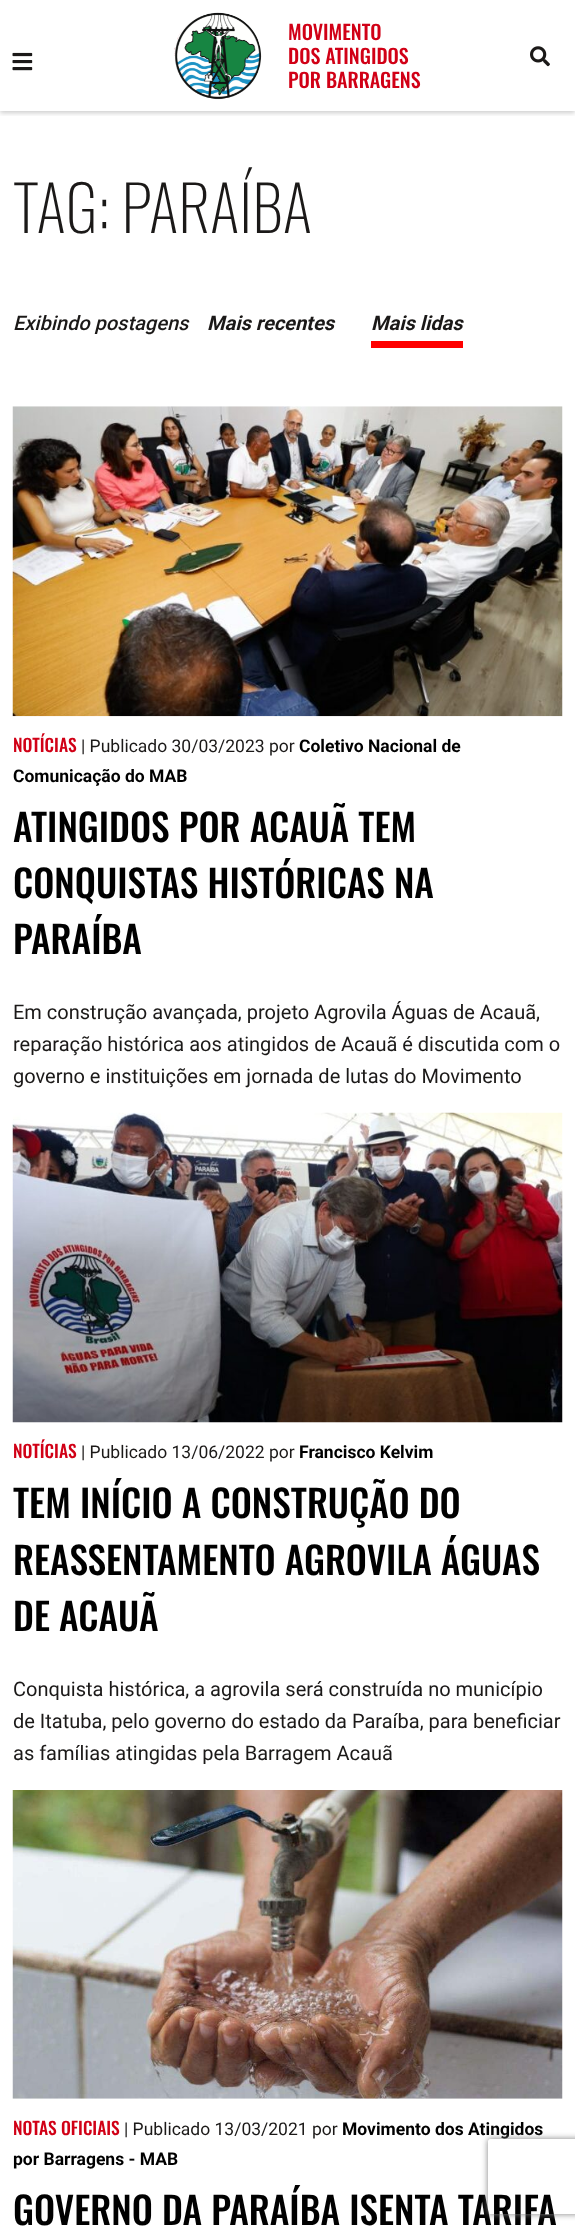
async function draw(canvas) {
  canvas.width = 575
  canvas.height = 2231
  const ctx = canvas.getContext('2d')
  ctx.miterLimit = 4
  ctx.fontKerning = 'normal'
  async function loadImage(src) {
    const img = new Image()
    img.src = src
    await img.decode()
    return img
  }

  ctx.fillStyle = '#fff'
  ctx.fillRect(0, 0, 575, 2231)
  ctx.save()
  ctx.beginPath()
  ctx.rect(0, 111, 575, 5)
  ctx.clip()
  ctx.fillStyle = '#00000033'
  ctx.filter = 'blur(2.5px)'
  ctx.beginPath()
  ctx.rect(0, 1, 575, 112)
  ctx.fill()
  ctx.filter = 'none'
  ctx.restore()
  ctx.drawImage(await loadImage('image0.png'), 12, 52, 21, 19)
  ctx.drawImage(await loadImage('image1.png'), 174, 12, 88, 88)
  ctx.font = '500 20px Oswald'
  ctx.fillStyle = '#d10016'
  ctx.fillText('MOVIMENTO', 288, 40)
  ctx.fillText('DOS ATINGIDOS', 288, 64)
  ctx.fillText('POR BARRAGENS', 288, 88)
  ctx.drawImage(await loadImage('image2.png'), 530, 46, 20, 21)
  ctx.font = '200 62.5px Oswald'
  ctx.fillStyle = '#1b1918'
  ctx.fillText('TAG: PARAÍBA', 13, 233)
  ctx.font = 'italic 500 20px Roboto'
  ctx.fillText('Exibindo postagens', 13, 330)
  ctx.font = 'italic bold 20px Roboto'
  ctx.fillText('Mais recentes', 207, 330)
  ctx.fillText('Mais lidas', 371, 330)
  ctx.fillStyle = '#f00'
  ctx.fillRect(371, 341, 92, 7)
  ctx.drawImage(await loadImage('image3.png'), 12, 406, 551, 311)
  ctx.font = '500 17.5px Oswald'
  ctx.fillStyle = '#d10016'
  ctx.fillText('NOTÍCIAS', 13, 752)
  ctx.font = '17.5px Roboto'
  ctx.fillStyle = '#1b1918'
  ctx.fillText('| Publicado 30/03/2023 por', 81, 752)
  ctx.font = 'bold 17.5px Roboto'
  ctx.fillStyle = '#000'
  ctx.fillText('Coletivo Nacional de', 299, 752)
  ctx.fillText('Comunicação do MAB', 13, 782)
  ctx.font = '500 37.5px Oswald'
  ctx.fillText('ATINGIDOS POR ACAUÃ TEM', 13, 842)
  ctx.fillText('CONQUISTAS HISTÓRICAS NA', 13, 898)
  ctx.fillText('PARAÍBA', 13, 954)
  ctx.font = '20px Roboto'
  ctx.fillStyle = '#1b1918'
  ctx.fillText('Em construção avançada, projeto Agrovila Águas de Acauã,', 13, 1019)
  ctx.fillText('reparação histórica aos atingidos de Acauã é discutida com o', 13, 1051)
  ctx.fillText('governo e instituições em jornada de lutas do Movimento', 13, 1083)
  ctx.drawImage(await loadImage('image4.png'), 12, 1112, 551, 311)
  ctx.font = '500 17.5px Oswald'
  ctx.fillStyle = '#d10016'
  ctx.fillText('NOTÍCIAS', 13, 1458)
  ctx.font = '17.5px Roboto'
  ctx.fillStyle = '#1b1918'
  ctx.fillText('| Publicado 13/06/2022 por', 81, 1458)
  ctx.font = 'bold 17.5px Roboto'
  ctx.fillStyle = '#000'
  ctx.fillText('Francisco Kelvim', 299, 1458)
  ctx.font = '500 37.5px Oswald'
  ctx.fillText('TEM INÍCIO A CONSTRUÇÃO DO', 13, 1518)
  ctx.fillText('REASSENTAMENTO AGROVILA ÁGUAS', 13, 1575)
  ctx.fillText('DE ACAUÃ', 13, 1631)
  ctx.font = '20px Roboto'
  ctx.fillStyle = '#1b1918'
  ctx.fillText('Conquista histórica, a agrovila será construída no município', 13, 1696)
  ctx.fillText('de Itatuba, pelo governo do estado da Paraíba, para beneficiar', 13, 1728)
  ctx.fillText('as famílias atingidas pela Barragem Acauã', 13, 1760)
  ctx.drawImage(await loadImage('image5.png'), 12, 1790, 551, 309)
  ctx.font = '500 17.5px Oswald'
  ctx.fillStyle = '#d10016'
  ctx.fillText('NOTAS OFICIAIS', 13, 2135)
  ctx.font = '17.5px Roboto'
  ctx.fillStyle = '#1b1918'
  ctx.fillText('| Publicado 13/03/2021 por', 124, 2135)
  ctx.font = 'bold 17.5px Roboto'
  ctx.fillStyle = '#000'
  ctx.fillText('Movimento dos Atingidos', 342, 2135)
  ctx.fillText('por Barragens - MAB', 13, 2165)
  ctx.font = '500 37.5px Oswald'
  ctx.fillText('GOVERNO DA PARAÍBA ISENTA TARIFA', 13, 2225)
  ctx.save()
  ctx.beginPath()
  ctx.moveTo(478, 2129)
  ctx.lineTo(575, 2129)
  ctx.lineTo(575, 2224)
  ctx.lineTo(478, 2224)
  ctx.closePath()
  ctx.moveTo(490.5, 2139)
  ctx.lineTo(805.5, 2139)
  ctx.bezierCurveTo(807, 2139, 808, 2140, 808, 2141.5)
  ctx.lineTo(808, 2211.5)
  ctx.bezierCurveTo(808, 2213, 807, 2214, 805.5, 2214)
  ctx.lineTo(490.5, 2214)
  ctx.bezierCurveTo(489, 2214, 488, 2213, 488, 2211.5)
  ctx.lineTo(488, 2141.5)
  ctx.bezierCurveTo(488, 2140, 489, 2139, 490.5, 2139)
  ctx.closePath()
  ctx.clip('evenodd')
  ctx.fillStyle = '#808080'
  ctx.filter = 'blur(3px)'
  ctx.beginPath()
  ctx.roundRect(488, 2139, 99, 75, 2.5)
  ctx.fill()
  ctx.filter = 'none'
  ctx.restore()
}

draw(document.querySelector('canvas'))
